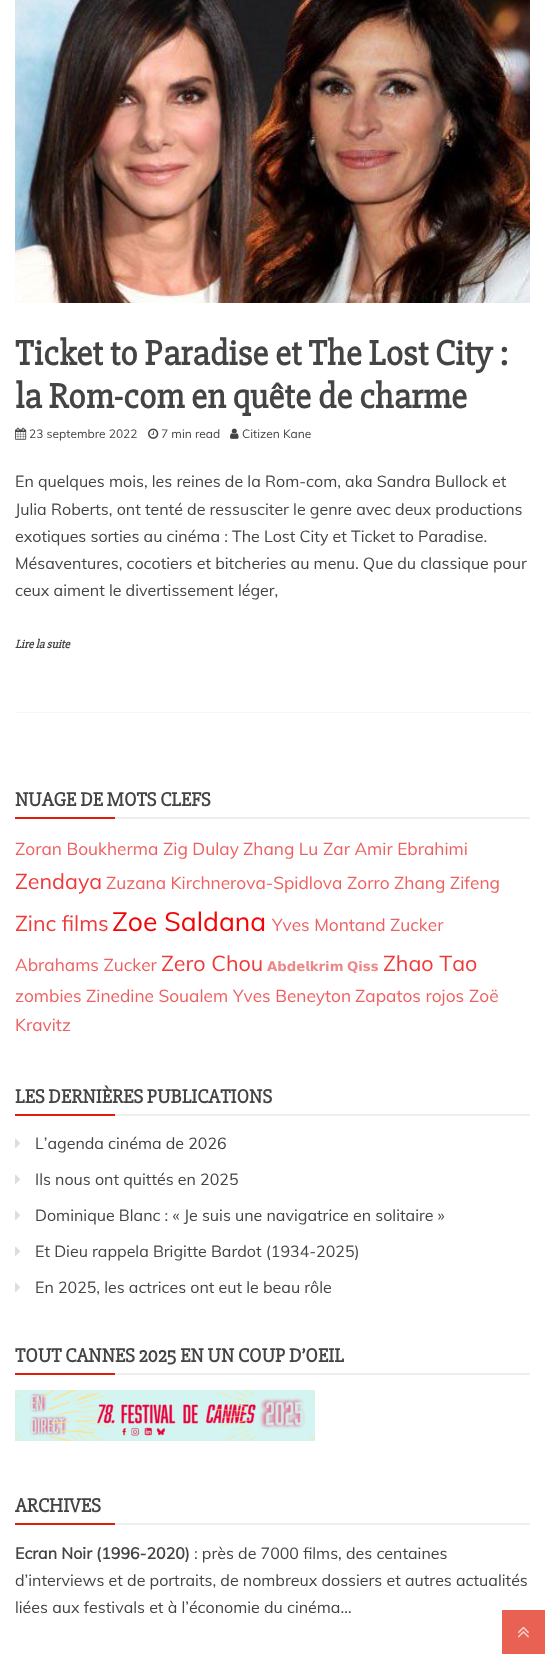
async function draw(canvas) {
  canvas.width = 545
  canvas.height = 1654
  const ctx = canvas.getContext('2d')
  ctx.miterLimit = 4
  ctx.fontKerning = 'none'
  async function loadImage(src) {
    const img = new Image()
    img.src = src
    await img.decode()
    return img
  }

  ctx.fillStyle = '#fff'
  ctx.fillRect(0, 0, 545, 1654)
  ctx.fillStyle = '#f5f5f5'
  ctx.fillRect(15, 712, 515, 1)
  ctx.drawImage(await loadImage('image0.png'), 15, 0, 515, 303)
  ctx.font = 'bold 36px "Slabo 27px"'
  ctx.fillStyle = '#444'
  ctx.fillText('Ticket to Paradise et The Lost City :', 15, 365)
  ctx.fillText('la Rom-com en quête de charme', 15, 408)
  ctx.drawImage(await loadImage('image1.png'), 15, 427, 12, 13)
  ctx.font = '12px Muli'
  ctx.fillText('23 septembre 2022', 29, 438)
  ctx.drawImage(await loadImage('image2.png'), 148, 428, 11, 11)
  ctx.fillText('7 min read', 161, 438)
  ctx.drawImage(await loadImage('image3.png'), 230, 428, 9, 11)
  ctx.fillText('Citizen Kane', 242, 438)
  ctx.font = '16px Muli'
  ctx.fillText('En quelques mois, les reines de la Rom-com, aka Sandra Bullock et', 15, 487)
  ctx.fillText('Julia Roberts, ont tenté de ressusciter le genre avec deux productions', 15, 515)
  ctx.fillText('exotiques sorties au cinéma : The Lost City et Ticket to Paradise.', 15, 542)
  ctx.fillText('Mésaventures, cocotiers et bitcheries au menu. Que du classique pour', 15, 569)
  ctx.fillText('ceux aiment le divertissement léger,', 15, 596)
  ctx.font = 'italic bold 12px "Slabo 27px"'
  ctx.fillText('Lire la suite', 15, 648)
  ctx.fillStyle = '#eee'
  ctx.fillRect(115, 817, 415, 2)
  ctx.font = 'bold 20px "Slabo 27px"'
  ctx.fillStyle = '#444'
  ctx.fillText('NUAGE DE MOTS CLEFS', 15, 806)
  ctx.fillStyle = '#df1d09'
  ctx.fillRect(15, 817, 100, 2)
  ctx.font = '17.3px Muli'
  ctx.fillStyle = '#ee6060'
  ctx.fillText('Zoran Boukherma', 15, 855)
  ctx.fillText('Zig Dulay', 163, 855)
  ctx.fillText('Zhang Lu', 243, 855)
  ctx.fillText('Zar Amir Ebrahimi', 323, 855)
  ctx.font = '21.5px Muli'
  ctx.fillStyle = '#f03939'
  ctx.fillText('Zendaya', 15, 889)
  ctx.font = '17.3px Muli'
  ctx.fillStyle = '#ee6060'
  ctx.fillText('Zuzana Kirchnerova-Spidlova', 106, 889)
  ctx.fillText('Zorro', 347, 889)
  ctx.fillText('Zhang Zifeng', 394, 889)
  ctx.font = '21.5px Muli'
  ctx.fillStyle = '#f03939'
  ctx.fillText('Zinc films', 15, 931)
  ctx.font = '26.5px Muli'
  ctx.fillStyle = '#f40505'
  ctx.fillText('Zoe Saldana', 112, 931)
  ctx.font = '17.3px Muli'
  ctx.fillStyle = '#ee6060'
  ctx.fillText('Yves Montand', 272, 931)
  ctx.fillText('Zucker', 390, 931)
  ctx.fillText('Abrahams Zucker', 15, 971)
  ctx.font = '21.5px Muli'
  ctx.fillStyle = '#f03939'
  ctx.fillText('Zero Chou', 161, 971)
  ctx.wordSpacing = '-1px'
  ctx.font = 'bold 13.25px DejaVu Sans'
  ctx.fillStyle = '#ec8787'
  ctx.fillText('𝗔𝗯𝗱𝗲𝗹𝗸𝗿𝗶𝗺 𝗤𝗶𝘀𝘀', 267, 971)
  ctx.wordSpacing = '0px'
  ctx.font = '21.5px Muli'
  ctx.fillStyle = '#f03939'
  ctx.fillText('Zhao Tao', 383, 971)
  ctx.font = '17.3px Muli'
  ctx.fillStyle = '#ee6060'
  ctx.fillText('zombies', 15, 1002)
  ctx.fillText('Zinedine Soualem', 86, 1002)
  ctx.fillText('Yves Beneyton', 233, 1002)
  ctx.fillText('Zapatos rojos', 355, 1002)
  ctx.fillText('Zoë', 469, 1002)
  ctx.fillText('Kravitz', 15, 1031)
  ctx.fillStyle = '#eee'
  ctx.fillRect(115, 1114, 415, 2)
  ctx.font = 'bold 20px "Slabo 27px"'
  ctx.fillStyle = '#444'
  ctx.fillText('LES DERNIÈRES PUBLICATIONS', 15, 1103)
  ctx.fillStyle = '#df1d09'
  ctx.fillRect(15, 1114, 100, 2)
  ctx.drawImage(await loadImage('image4.png'), 15, 1138, 5, 10)
  ctx.font = '16px Muli'
  ctx.fillStyle = '#444'
  ctx.fillText('L’agenda cinéma de 2026', 35, 1149)
  ctx.drawImage(await loadImage('image4.png'), 15, 1174, 5, 10)
  ctx.fillText('Ils nous ont quittés en 2025', 35, 1185)
  ctx.drawImage(await loadImage('image4.png'), 15, 1210, 5, 10)
  ctx.fillText('Dominique Blanc : « Je suis une navigatrice en solitaire »', 35, 1221)
  ctx.drawImage(await loadImage('image4.png'), 15, 1246, 5, 10)
  ctx.fillText('Et Dieu rappela Brigitte Bardot (1934-2025)', 35, 1257)
  ctx.drawImage(await loadImage('image4.png'), 15, 1282, 5, 10)
  ctx.fillText('En 2025, les actrices ont eut le beau rôle', 35, 1293)
  ctx.fillStyle = '#eee'
  ctx.fillRect(115, 1373, 415, 2)
  ctx.font = 'bold 20px "Slabo 27px"'
  ctx.fillStyle = '#444'
  ctx.fillText('TOUT CANNES 2025 EN UN COUP D’OEIL', 15, 1362)
  ctx.fillStyle = '#df1d09'
  ctx.fillRect(15, 1373, 100, 2)
  ctx.drawImage(await loadImage('image5.png'), 15, 1390, 300, 51)
  ctx.fillStyle = '#eee'
  ctx.fillRect(115, 1523, 415, 2)
  ctx.fillStyle = '#444'
  ctx.fillText('ARCHIVES', 15, 1512)
  ctx.fillStyle = '#df1d09'
  ctx.fillRect(15, 1523, 100, 2)
  ctx.font = 'bold 16px Muli'
  ctx.fillStyle = '#444'
  ctx.fillText('Ecran Noir (1996-2020)', 15, 1559)
  ctx.font = '16px Muli'
  ctx.fillText(': près de 7000 films, des centaines', 194, 1559)
  ctx.fillText('d’interviews et de portraits, de nombreux dossiers et autres actualités', 15, 1586)
  ctx.fillText('liées aux festivals et à l’économie du cinéma…', 15, 1613)
  ctx.fillStyle = '#e96153'
  ctx.fillRect(502, 1610, 43, 44)
  ctx.drawImage(await loadImage('image6.png'), 517, 1626, 12, 12)
}

draw(document.querySelector('canvas'))
